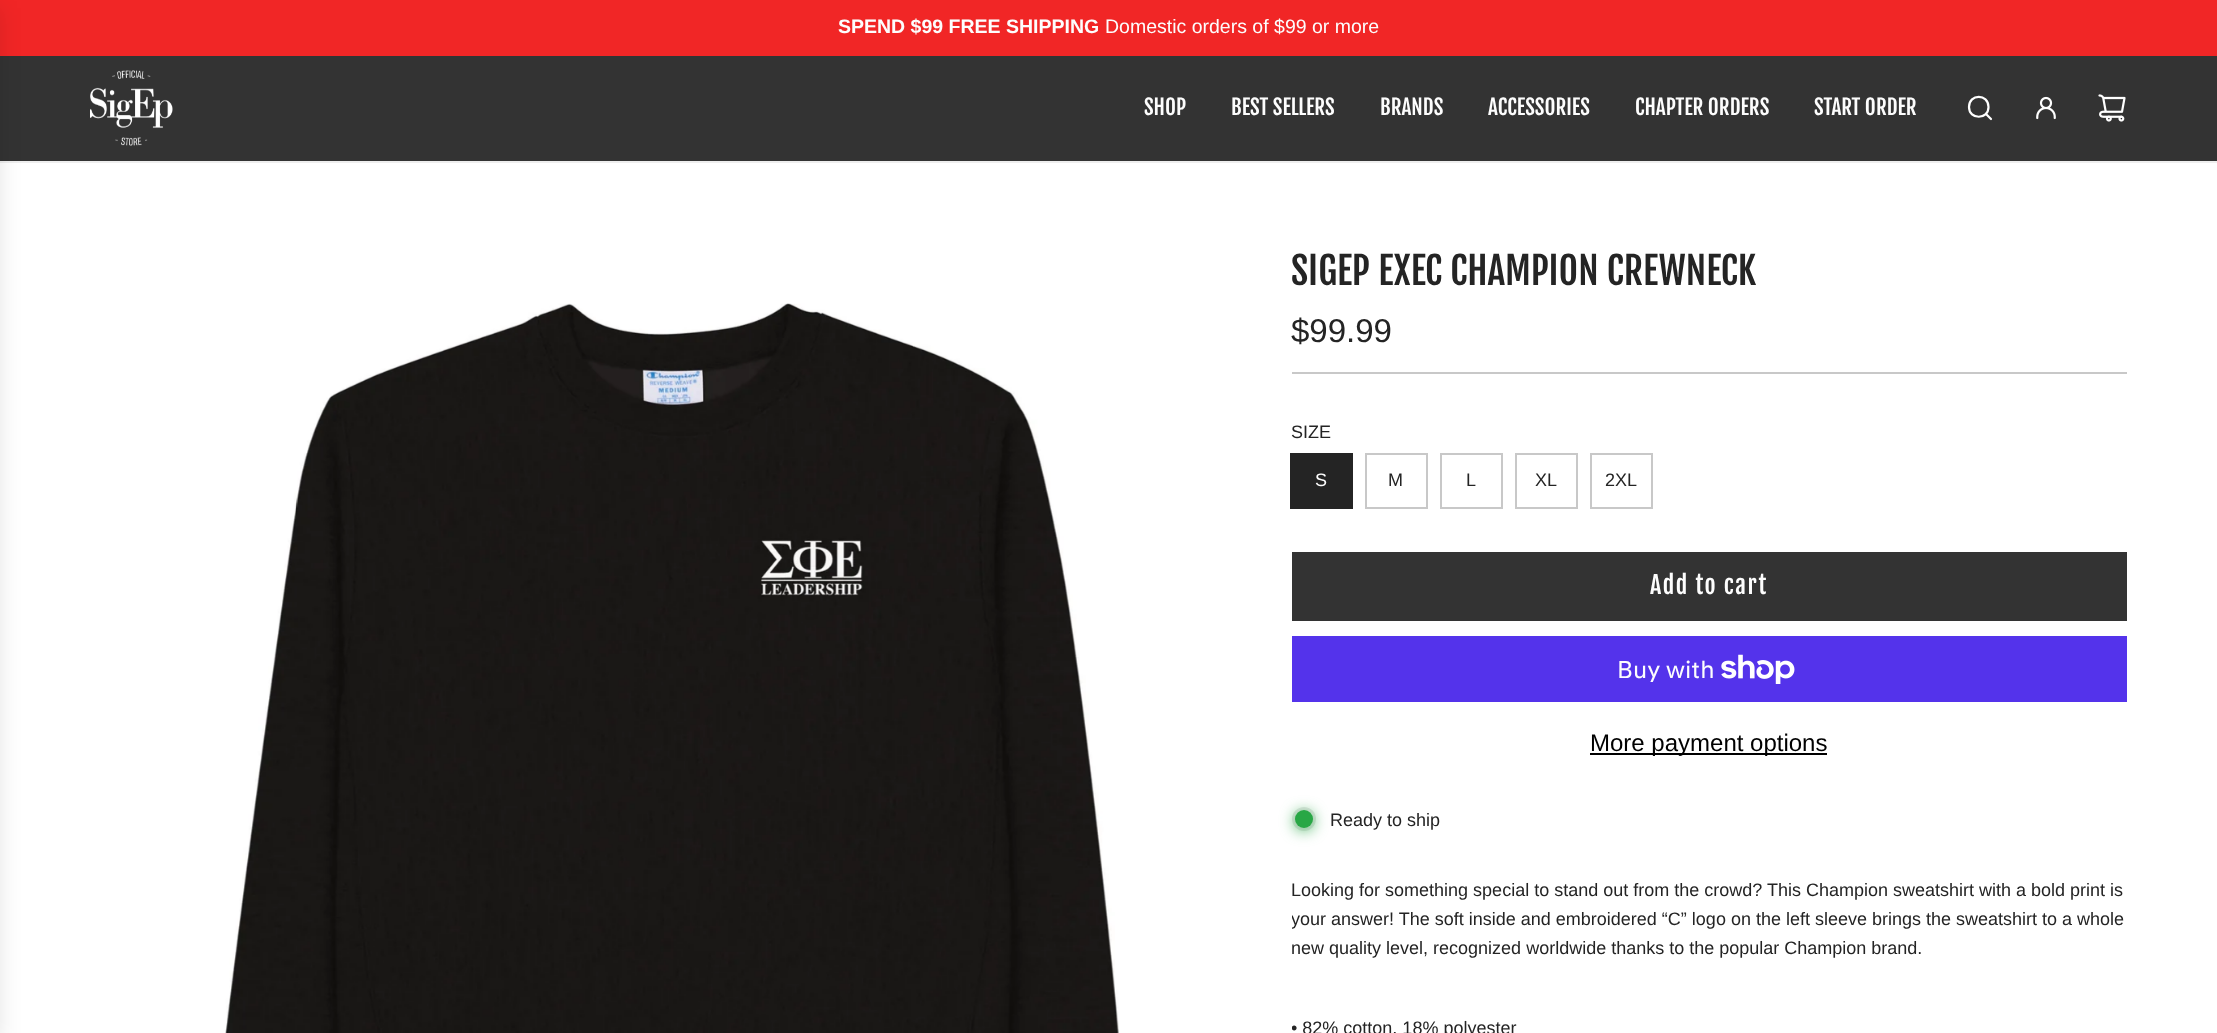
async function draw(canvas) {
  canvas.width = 2217
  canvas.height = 1033
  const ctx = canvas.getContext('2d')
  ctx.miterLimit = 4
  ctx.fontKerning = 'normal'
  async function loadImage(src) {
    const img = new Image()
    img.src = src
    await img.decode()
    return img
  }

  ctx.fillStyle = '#fff'
  ctx.fillRect(0, 0, 2217, 1033)
  ctx.fillStyle = '#f12626'
  ctx.fillRect(0, 0, 2217, 56)
  ctx.font = 'bold 19.5px Liberation Sans'
  ctx.fillStyle = '#fdfdfd'
  ctx.fillText('SPEND $99 FREE SHIPPING', 838, 33)
  ctx.font = '19.5px Liberation Sans'
  ctx.fillText('Domestic orders of $99 or more', 1105, 33)
  ctx.fillStyle = '#333'
  ctx.fillRect(0, 56, 2217, 105)
  ctx.fillStyle = '#eee'
  ctx.fillRect(0, 161, 2217, 2)
  ctx.fillStyle = '#0000001a'
  ctx.filter = 'blur(11px)'
  ctx.beginPath()
  ctx.rect(-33, 8, 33, 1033)
  ctx.fill()
  ctx.filter = 'none'
  ctx.drawImage(await loadImage('image0.png'), 90, 70, 83, 76)
  ctx.font = '21px Fjalla One'
  ctx.fillStyle = '#fdfdfd'
  ctx.fillText('SHOP', 1144, 115)
  ctx.fillText('BEST SELLERS', 1231, 115)
  ctx.fillText('BRANDS', 1380, 115)
  ctx.fillText('ACCESSORIES', 1488, 115)
  ctx.fillText('CHAPTER ORDERS', 1635, 115)
  ctx.fillText('START ORDER', 1814, 115)
  ctx.beginPath()
  ctx.moveTo(1986.5, 114.5)
  ctx.lineTo(1991, 119)
  ctx.moveTo(1969, 107)
  ctx.bezierCurveTo(1969, 120, 1988.5, 120, 1988.5, 107)
  ctx.bezierCurveTo(1988.5, 93.5, 1969, 93.5, 1969, 107)
  ctx.closePath()
  ctx.strokeStyle = '#fff'
  ctx.lineWidth = 2.2
  ctx.lineCap = 'round'
  ctx.lineJoin = 'round'
  ctx.stroke()
  ctx.drawImage(await loadImage('image1.png'), 2036, 96, 20, 24)
  ctx.drawImage(await loadImage('image2.png'), 2098, 94, 28, 28)
  ctx.drawImage(await loadImage('image3.png'), 225, 303, 894, 730)
  ctx.font = '37.5px Fjalla One'
  ctx.fillStyle = '#242424'
  ctx.fillText('SIGEP EXEC CHAMPION CREWNECK', 1291, 285)
  ctx.font = '33px Liberation Sans'
  ctx.fillText('$99.99', 1291, 342)
  ctx.fillStyle = '#c8c8c8'
  ctx.fillRect(1292, 372, 835, 2)
  ctx.font = '18px Liberation Sans'
  ctx.fillStyle = '#242424'
  ctx.fillText('SIZE', 1291, 438)
  ctx.fillRect(1292, 455, 59, 52)
  ctx.strokeStyle = '#242424'
  ctx.lineWidth = 2
  ctx.lineJoin = 'miter'
  ctx.strokeRect(1291, 454, 61, 54)
  ctx.fillStyle = '#fdfdfd'
  ctx.fillText('S', 1315, 486)
  ctx.strokeStyle = '#c8c8c8'
  ctx.strokeRect(1366, 454, 61, 54)
  ctx.fillStyle = '#242424'
  ctx.fillText('M', 1388, 486)
  ctx.strokeRect(1441, 454, 61, 54)
  ctx.fillText('L', 1466, 486)
  ctx.strokeRect(1516, 454, 61, 54)
  ctx.fillText('XL', 1535, 486)
  ctx.strokeRect(1591, 454, 61, 54)
  ctx.fillText('2XL', 1605, 486)
  ctx.fillStyle = '#333'
  ctx.fillRect(1292, 552, 835, 69)
  ctx.letterSpacing = '1.5px'
  ctx.font = '24px Fjalla One'
  ctx.fillStyle = '#fdfdfd'
  ctx.fillText('Add to cart', 1650, 594)
  ctx.fillStyle = '#5433eb'
  ctx.fillRect(1292, 636, 835, 66)
  ctx.letterSpacing = '0px'
  ctx.font = '24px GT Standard'
  ctx.fillStyle = '#fdfdfd'
  ctx.fillText('Buy with', 1617, 678)
  ctx.drawImage(await loadImage('image4.png'), 1721, 654, 74, 30)
  ctx.fillStyle = '#000'
  ctx.fillRect(1590, 753, 237, 2)
  ctx.font = '24px Liberation Sans'
  ctx.fillText('More payment options', 1590, 751)
  ctx.fillStyle = '#e9e9e9'
  ctx.beginPath()
  ctx.arc(1304, 819, 12, 0, 2 * Math.PI)
  ctx.fill()
  ctx.fillStyle = '#28a745'
  ctx.filter = 'blur(7.5px)'
  ctx.beginPath()
  ctx.roundRect(1295, 812, 18, 18, 9)
  ctx.fill()
  ctx.filter = 'none'
  ctx.beginPath()
  ctx.arc(1304, 819, 9, 0, 2 * Math.PI)
  ctx.fill()
  ctx.font = '18px Liberation Sans'
  ctx.fillStyle = '#242424'
  ctx.fillText('Ready to ship', 1330, 826)
  ctx.fillText('Looking for something special to stand out from the crowd? This Champion sweatshirt with a bold print is', 1291, 896)
  ctx.save()
  ctx.beginPath()
  ctx.rect(1292, 876, 835, 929)
  ctx.clip()
  ctx.fillText('your answer! The soft inside and embroidered “C” logo on the left sleeve brings the sweatshirt to a whole', 1291, 925)
  ctx.restore()
  ctx.fillText('new quality level, recognized worldwide thanks to the popular Champion brand.', 1291, 954)
  ctx.save()
  ctx.beginPath()
  ctx.rect(1292, 876, 835, 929)
  ctx.clip()
  ctx.fillText('• 82% cotton, 18% polyester', 1291, 1034)
  ctx.restore()
}

draw(document.querySelector('canvas'))
